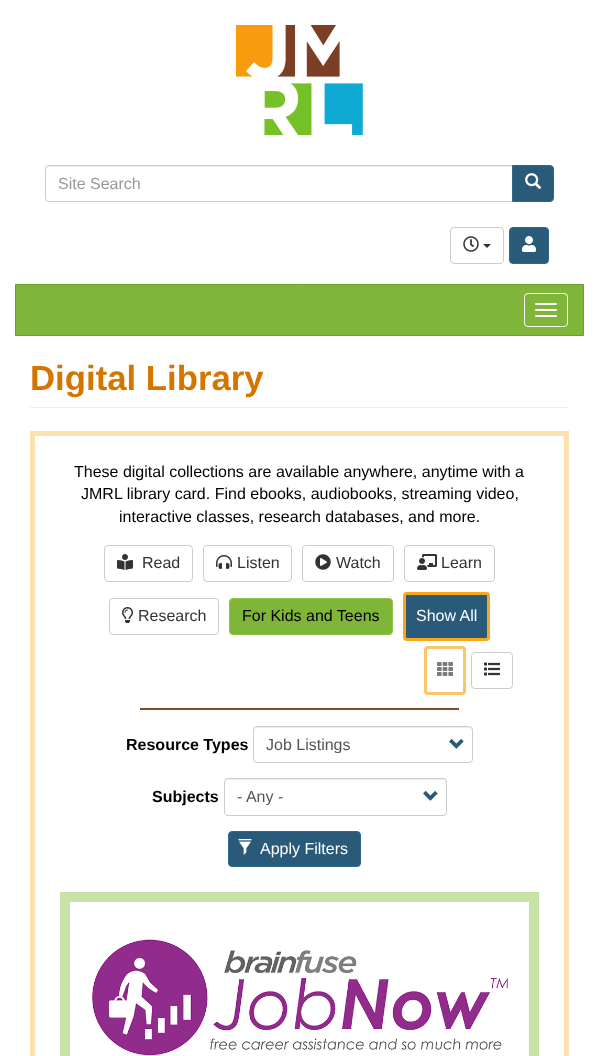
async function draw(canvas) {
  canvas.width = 599
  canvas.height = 1056
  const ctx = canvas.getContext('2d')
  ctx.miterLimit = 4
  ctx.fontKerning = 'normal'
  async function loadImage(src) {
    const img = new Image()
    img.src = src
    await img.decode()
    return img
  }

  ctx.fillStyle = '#fff'
  ctx.fillRect(0, 0, 599, 1056)
  ctx.drawImage(await loadImage('image0.png'), 236, 25, 127, 110)
  ctx.fillStyle = '#ececec'
  ctx.beginPath()
  ctx.moveTo(49, 167)
  ctx.lineTo(512, 167)
  ctx.lineTo(512, 166)
  ctx.lineTo(49, 166)
  ctx.bezierCurveTo(47, 166, 46, 168, 46, 170)
  ctx.bezierCurveTo(46, 168, 47, 167, 49, 167)
  ctx.closePath()
  ctx.fill()
  ctx.beginPath()
  ctx.roundRect(45.5, 165.5, 467, 36, [3.5, 0, 0, 3.5])
  ctx.strokeStyle = '#ccc'
  ctx.stroke()
  ctx.font = '16px Liberation Sans'
  ctx.fillStyle = '#999'
  ctx.fillText('Site Search', 58, 189)
  ctx.fillStyle = '#295a7a'
  ctx.beginPath()
  ctx.roundRect(512.5, 165.5, 41, 36, [0, 3.5, 3.5, 0])
  ctx.fill()
  ctx.strokeStyle = '#2f688d'
  ctx.stroke()
  ctx.drawImage(await loadImage('image1.png'), 525, 173, 17, 17)
  ctx.beginPath()
  ctx.roundRect(450.5, 227.5, 53, 36, 3.5)
  ctx.strokeStyle = '#ccc'
  ctx.stroke()
  ctx.drawImage(await loadImage('image2.png'), 463, 236, 16, 16)
  ctx.fillStyle = '#333'
  ctx.beginPath()
  ctx.moveTo(483, 244)
  ctx.lineTo(491, 244)
  ctx.lineTo(487, 248)
  ctx.closePath()
  ctx.fill()
  ctx.fillStyle = '#295a7a'
  ctx.beginPath()
  ctx.roundRect(509.5, 227.5, 39, 36, 3.5)
  ctx.fill()
  ctx.strokeStyle = '#2f688d'
  ctx.stroke()
  ctx.drawImage(await loadImage('image3.png'), 522, 236, 14, 16)
  ctx.fillStyle = '#7fb539'
  ctx.beginPath()
  ctx.rect(15.5, 284.5, 568, 51)
  ctx.fill()
  ctx.strokeStyle = '#6d9c31'
  ctx.stroke()
  ctx.beginPath()
  ctx.roundRect(524.5, 293.5, 43, 33, 3.5)
  ctx.strokeStyle = '#fff'
  ctx.stroke()
  ctx.fillStyle = '#fff'
  ctx.beginPath()
  ctx.roundRect(535, 303, 22, 2, 1)
  ctx.fill()
  ctx.beginPath()
  ctx.roundRect(535, 309, 22, 2, 1)
  ctx.fill()
  ctx.beginPath()
  ctx.roundRect(535, 315, 22, 2, 1)
  ctx.fill()
  ctx.fillStyle = '#eee'
  ctx.fillRect(30, 407, 539, 1)
  ctx.font = 'bold 34.75px Liberation Sans'
  ctx.fillStyle = '#d47500'
  ctx.fillText('Digital Library', 30, 390)
  ctx.strokeStyle = '#fde0b0'
  ctx.lineWidth = 5
  ctx.strokeRect(32.5, 433.5, 534, 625)
  ctx.font = '16px Liberation Sans'
  ctx.fillStyle = '#000'
  ctx.fillText('These digital collections are available anywhere, anytime with a', 74, 477)
  ctx.fillText('JMRL library card. Find ebooks, audiobooks, streaming video,', 81, 499)
  ctx.fillText('interactive classes, research databases, and more.', 119, 522)
  ctx.beginPath()
  ctx.roundRect(104.5, 545.5, 88, 36, 3.5)
  ctx.strokeStyle = '#ccc'
  ctx.lineWidth = 1
  ctx.stroke()
  ctx.drawImage(await loadImage('image4.png'), 117, 554, 16, 16)
  ctx.fillStyle = '#333'
  ctx.fillText('Read', 142, 568)
  ctx.beginPath()
  ctx.roundRect(203.5, 545.5, 88, 36, 3.5)
  ctx.stroke()
  ctx.drawImage(await loadImage('image5.png'), 216, 555, 16, 14)
  ctx.fillText('Listen', 237, 568)
  ctx.beginPath()
  ctx.roundRect(302.5, 545.5, 91, 36, 3.5)
  ctx.stroke()
  ctx.drawImage(await loadImage('image6.png'), 315, 554, 16, 16)
  ctx.fillText('Watch', 336, 568)
  ctx.beginPath()
  ctx.roundRect(404.5, 545.5, 90, 36, 3.5)
  ctx.stroke()
  ctx.drawImage(await loadImage('image7.png'), 417, 554, 20, 16)
  ctx.fillText('Learn', 441, 568)
  ctx.beginPath()
  ctx.roundRect(109.5, 598.5, 109, 36, 3.5)
  ctx.stroke()
  ctx.drawImage(await loadImage('image8.png'), 122, 607, 11, 16)
  ctx.fillText('Research', 138, 621)
  ctx.fillStyle = '#7fb539'
  ctx.beginPath()
  ctx.roundRect(229.5, 598.5, 163, 36, 3.5)
  ctx.fill()
  ctx.strokeStyle = '#8cc444'
  ctx.stroke()
  ctx.fillStyle = '#000'
  ctx.fillText('For Kids and Teens', 242, 621)
  ctx.fillStyle = '#295a7a'
  ctx.beginPath()
  ctx.roundRect(404.5, 593.5, 84, 46, 2.5)
  ctx.fill()
  ctx.strokeStyle = '#faa61a'
  ctx.lineWidth = 3
  ctx.stroke()
  ctx.fillStyle = '#fff'
  ctx.fillText('Show All', 416, 621)
  ctx.beginPath()
  ctx.roundRect(425.5, 647.5, 39, 46, 2.5)
  ctx.strokeStyle = '#fcc56a'
  ctx.stroke()
  ctx.drawImage(await loadImage('image9.png'), 437, 662, 16, 14)
  ctx.beginPath()
  ctx.roundRect(471.5, 652.5, 41, 36, 3.5)
  ctx.strokeStyle = '#ccc'
  ctx.lineWidth = 1
  ctx.stroke()
  ctx.drawImage(await loadImage('image10.png'), 484, 662, 16, 14)
  ctx.fillStyle = '#82492c'
  ctx.fillRect(140, 708, 319, 2)
  ctx.font = 'bold 16px Liberation Sans'
  ctx.fillStyle = '#000'
  ctx.fillText('Resource Types', 126, 750)
  ctx.fillStyle = '#ececec'
  ctx.beginPath()
  ctx.moveTo(257, 728)
  ctx.lineTo(469, 728)
  ctx.bezierCurveTo(471, 728, 472, 729, 472, 731)
  ctx.lineTo(472, 730)
  ctx.bezierCurveTo(472, 728, 471, 727, 469, 727)
  ctx.lineTo(257, 727)
  ctx.bezierCurveTo(255, 727, 254, 728, 254, 730)
  ctx.lineTo(254, 731)
  ctx.bezierCurveTo(254, 729, 255, 728, 257, 728)
  ctx.closePath()
  ctx.fill()
  ctx.beginPath()
  ctx.roundRect(253.5, 726.5, 219, 36, 3.5)
  ctx.stroke()
  ctx.save()
  ctx.beginPath()
  ctx.rect(266, 737, 174, 16)
  ctx.clip()
  ctx.font = '16px Liberation Sans'
  ctx.fillStyle = '#555'
  ctx.fillText('Job Listings', 266, 750)
  ctx.restore()
  ctx.drawImage(await loadImage('image11.png'), 449, 738, 15, 11)
  ctx.fillStyle = '#000'
  ctx.fillText('Subjects', 152, 802)
  ctx.fillStyle = '#ececec'
  ctx.beginPath()
  ctx.moveTo(228, 780)
  ctx.lineTo(443, 780)
  ctx.bezierCurveTo(445, 780, 446, 781, 446, 783)
  ctx.lineTo(446, 782)
  ctx.bezierCurveTo(446, 780, 445, 779, 443, 779)
  ctx.lineTo(228, 779)
  ctx.bezierCurveTo(226, 779, 225, 780, 225, 782)
  ctx.lineTo(225, 783)
  ctx.bezierCurveTo(225, 781, 226, 780, 228, 780)
  ctx.closePath()
  ctx.fill()
  ctx.beginPath()
  ctx.roundRect(224.5, 778.5, 222, 37, 3.5)
  ctx.stroke()
  ctx.save()
  ctx.beginPath()
  ctx.rect(237, 789, 177, 16)
  ctx.clip()
  ctx.font = '16px Liberation Sans'
  ctx.fillStyle = '#555'
  ctx.fillText('- Any -', 237, 802)
  ctx.restore()
  ctx.drawImage(await loadImage('image11.png'), 423, 790, 15, 11)
  ctx.fillStyle = '#295a7a'
  ctx.beginPath()
  ctx.roundRect(228.5, 831.5, 132, 35, 3.5)
  ctx.fill()
  ctx.strokeStyle = '#2f688d'
  ctx.stroke()
  ctx.drawImage(await loadImage('image12.png'), 238, 839, 14, 16)
  ctx.font = '16px Liberation Sans'
  ctx.fillStyle = '#fff'
  ctx.fillText('Apply Filters', 260, 854)
  ctx.strokeStyle = '#c8e3a5'
  ctx.lineWidth = 10
  ctx.strokeRect(65, 897, 469, 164)
  ctx.drawImage(await loadImage('image13.png'), 92, 939, 416, 117)
}

draw(document.querySelector('canvas'))
